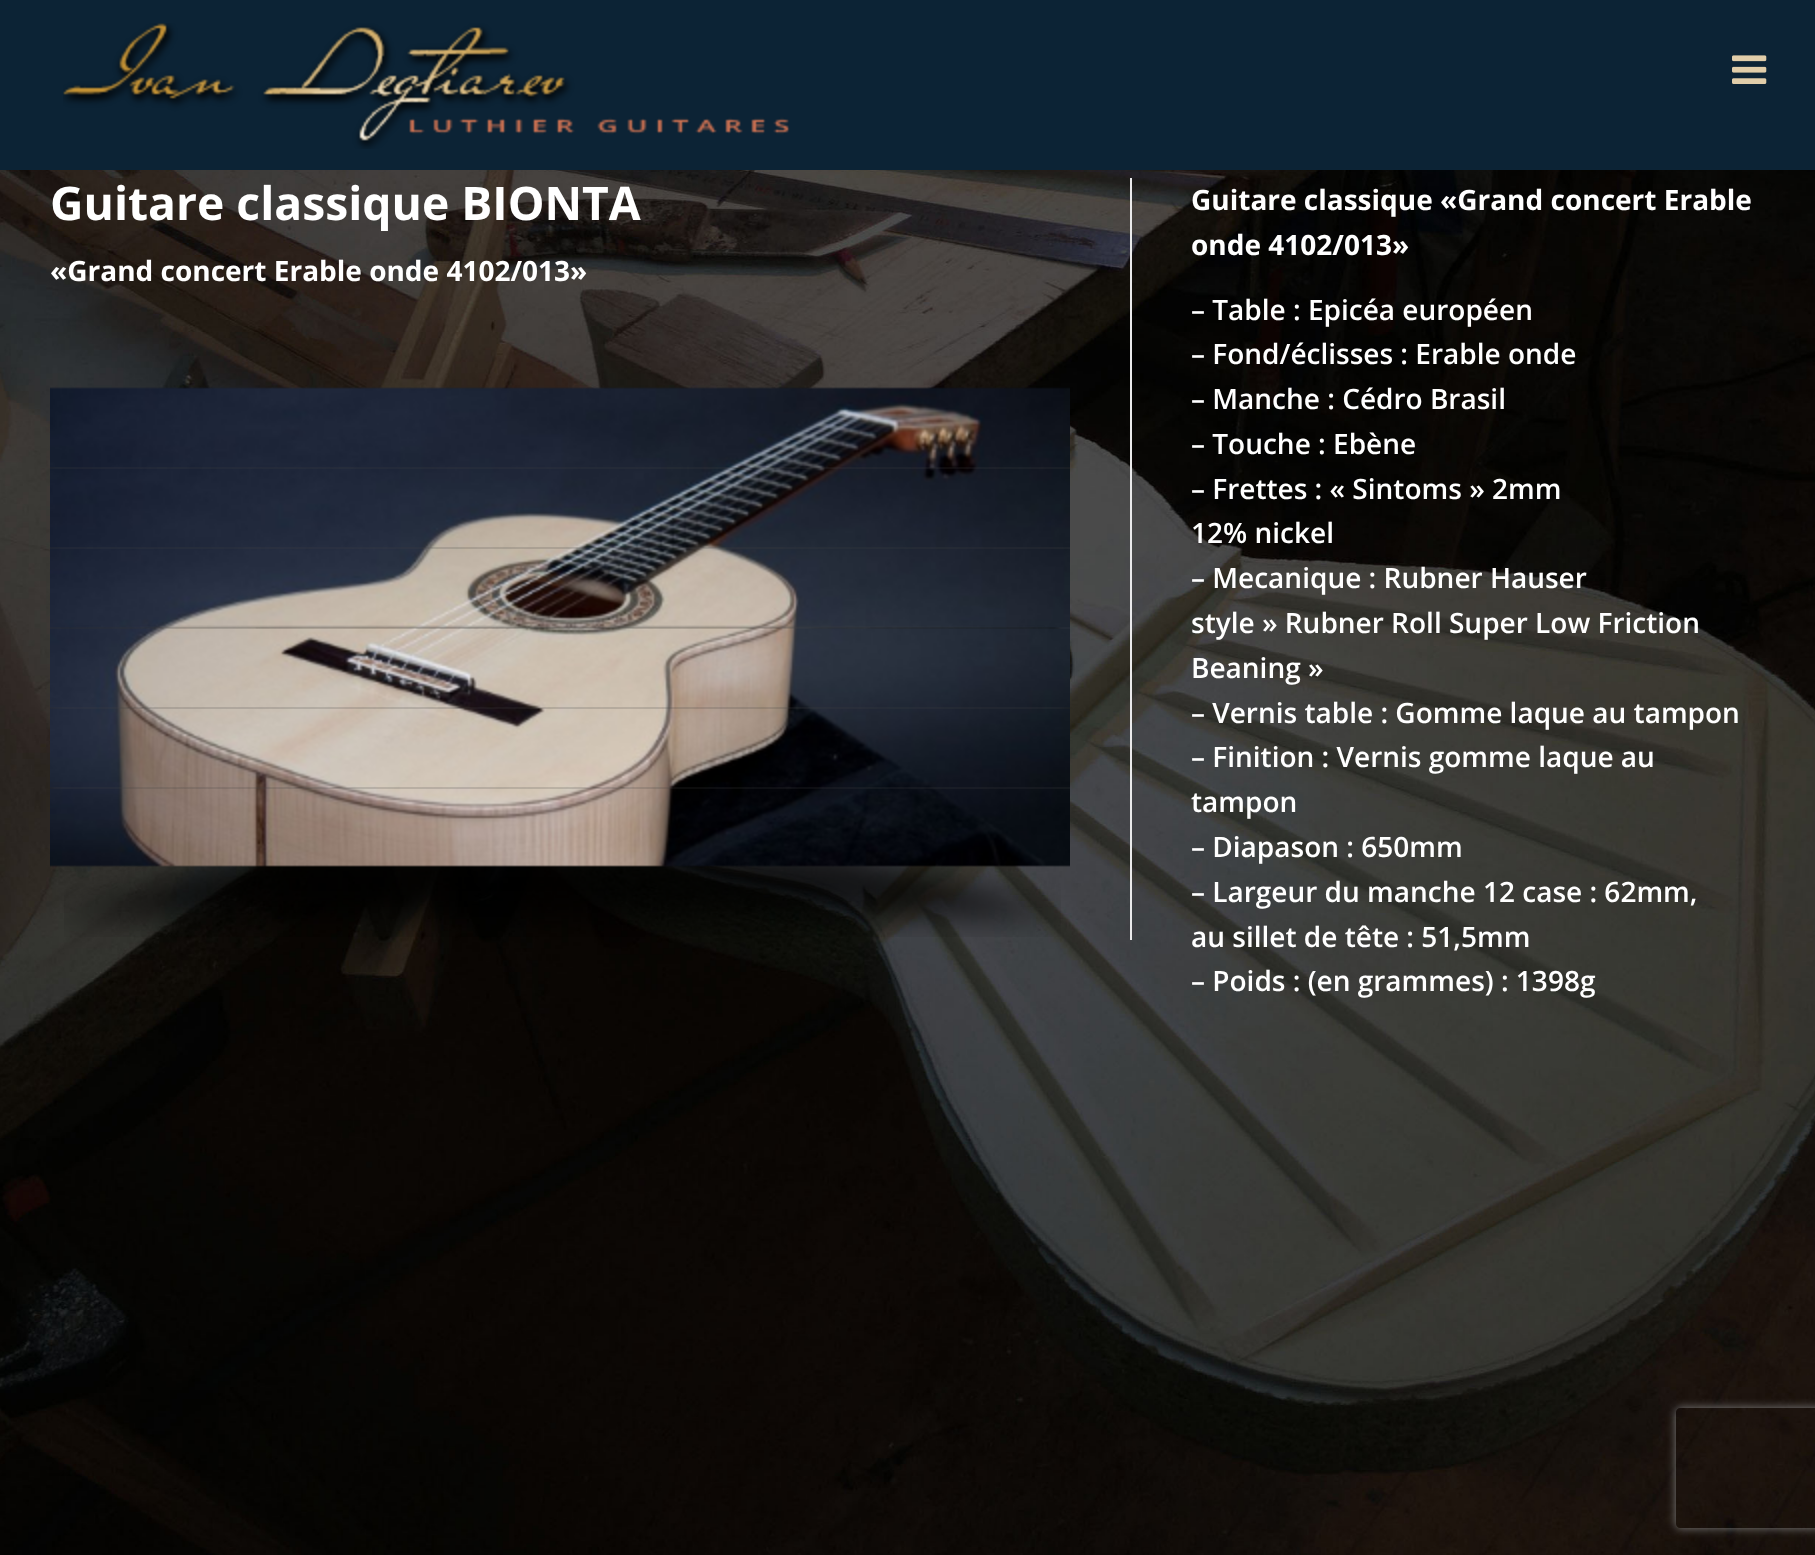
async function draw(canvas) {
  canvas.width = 1815
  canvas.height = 1555
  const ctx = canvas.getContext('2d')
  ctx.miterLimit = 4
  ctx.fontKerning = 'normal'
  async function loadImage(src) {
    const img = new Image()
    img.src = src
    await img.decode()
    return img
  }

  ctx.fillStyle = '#fff'
  ctx.fillRect(0, 0, 1815, 1555)
  ctx.drawImage(await loadImage('image0.png'), 0, 170, 1815, 1385)
  ctx.fillStyle = '#0c2335'
  ctx.fillRect(0, 0, 1815, 170)
  ctx.drawImage(await loadImage('image1.png'), 63, 23, 727, 126)
  ctx.drawImage(await loadImage('image2.png'), 1732, 55, 35, 29)
  ctx.fillStyle = '#eaeaeb'
  ctx.fillRect(1130, 178, 2, 762)
  ctx.font = 'bold 46.25px Open Sans'
  ctx.fillStyle = '#fff'
  ctx.fillText('Guitare classique BIONTA', 50, 220)
  ctx.font = 'bold 28px Open Sans'
  ctx.fillText('«Grand concert Erable onde 4102/013»', 50, 281)
  ctx.drawImage(await loadImage('image3.png'), 50, 387, 1020, 82)
  ctx.drawImage(await loadImage('image4.png'), 50, 467, 1020, 82)
  ctx.drawImage(await loadImage('image5.png'), 50, 547, 1020, 82)
  ctx.drawImage(await loadImage('image9.png'), 64, 865, 997, 72)
  ctx.drawImage(await loadImage('image8.png'), 50, 787, 1020, 80)
  ctx.drawImage(await loadImage('image7.png'), 50, 707, 1020, 82)
  ctx.drawImage(await loadImage('image6.png'), 50, 625, 1020, 84)
  ctx.fillText('Guitare classique «Grand concert Erable', 1191, 210)
  ctx.fillText('onde 4102/013»', 1191, 255)
  ctx.font = '600 28px Open Sans'
  ctx.fillText('– Table : Epicéa européen', 1191, 320)
  ctx.fillText('– Fond/éclisses : Erable onde', 1191, 364)
  ctx.fillText('– Manche : Cédro Brasil', 1191, 409)
  ctx.fillText('– Touche : Ebène', 1191, 454)
  ctx.fillText('– Frettes : « Sintoms » 2mm', 1191, 499)
  ctx.fillText('12% nickel', 1191, 543)
  ctx.fillText('– Mecanique : Rubner Hauser', 1191, 588)
  ctx.fillText('style » Rubner Roll Super Low Friction', 1191, 633)
  ctx.fillText('Beaning »', 1191, 678)
  ctx.fillText('– Vernis table : Gomme laque au tampon', 1191, 723)
  ctx.fillText('– Finition : Vernis gomme laque au', 1191, 767)
  ctx.fillText('tampon', 1191, 812)
  ctx.fillText('– Diapason : 650mm', 1191, 857)
  ctx.fillText('– Largeur du manche 12 case : 62mm,', 1191, 902)
  ctx.fillText('au sillet de tête : 51,5mm', 1191, 947)
  ctx.fillText('– Poids : (en grammes) : 1398g', 1191, 991)
  ctx.save()
  ctx.beginPath()
  ctx.moveTo(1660, 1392)
  ctx.lineTo(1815, 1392)
  ctx.lineTo(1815, 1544)
  ctx.lineTo(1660, 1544)
  ctx.closePath()
  ctx.moveTo(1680, 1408)
  ctx.lineTo(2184, 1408)
  ctx.bezierCurveTo(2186, 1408, 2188, 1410, 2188, 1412)
  ctx.lineTo(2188, 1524)
  ctx.bezierCurveTo(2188, 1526, 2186, 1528, 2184, 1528)
  ctx.lineTo(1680, 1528)
  ctx.bezierCurveTo(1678, 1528, 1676, 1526, 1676, 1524)
  ctx.lineTo(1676, 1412)
  ctx.bezierCurveTo(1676, 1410, 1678, 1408, 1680, 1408)
  ctx.closePath()
  ctx.clip('evenodd')
  ctx.fillStyle = '#808080'
  ctx.filter = 'blur(5px)'
  ctx.beginPath()
  ctx.roundRect(1676, 1408, 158, 120, 4)
  ctx.fill()
  ctx.filter = 'none'
  ctx.restore()
}

draw(document.querySelector('canvas'))
